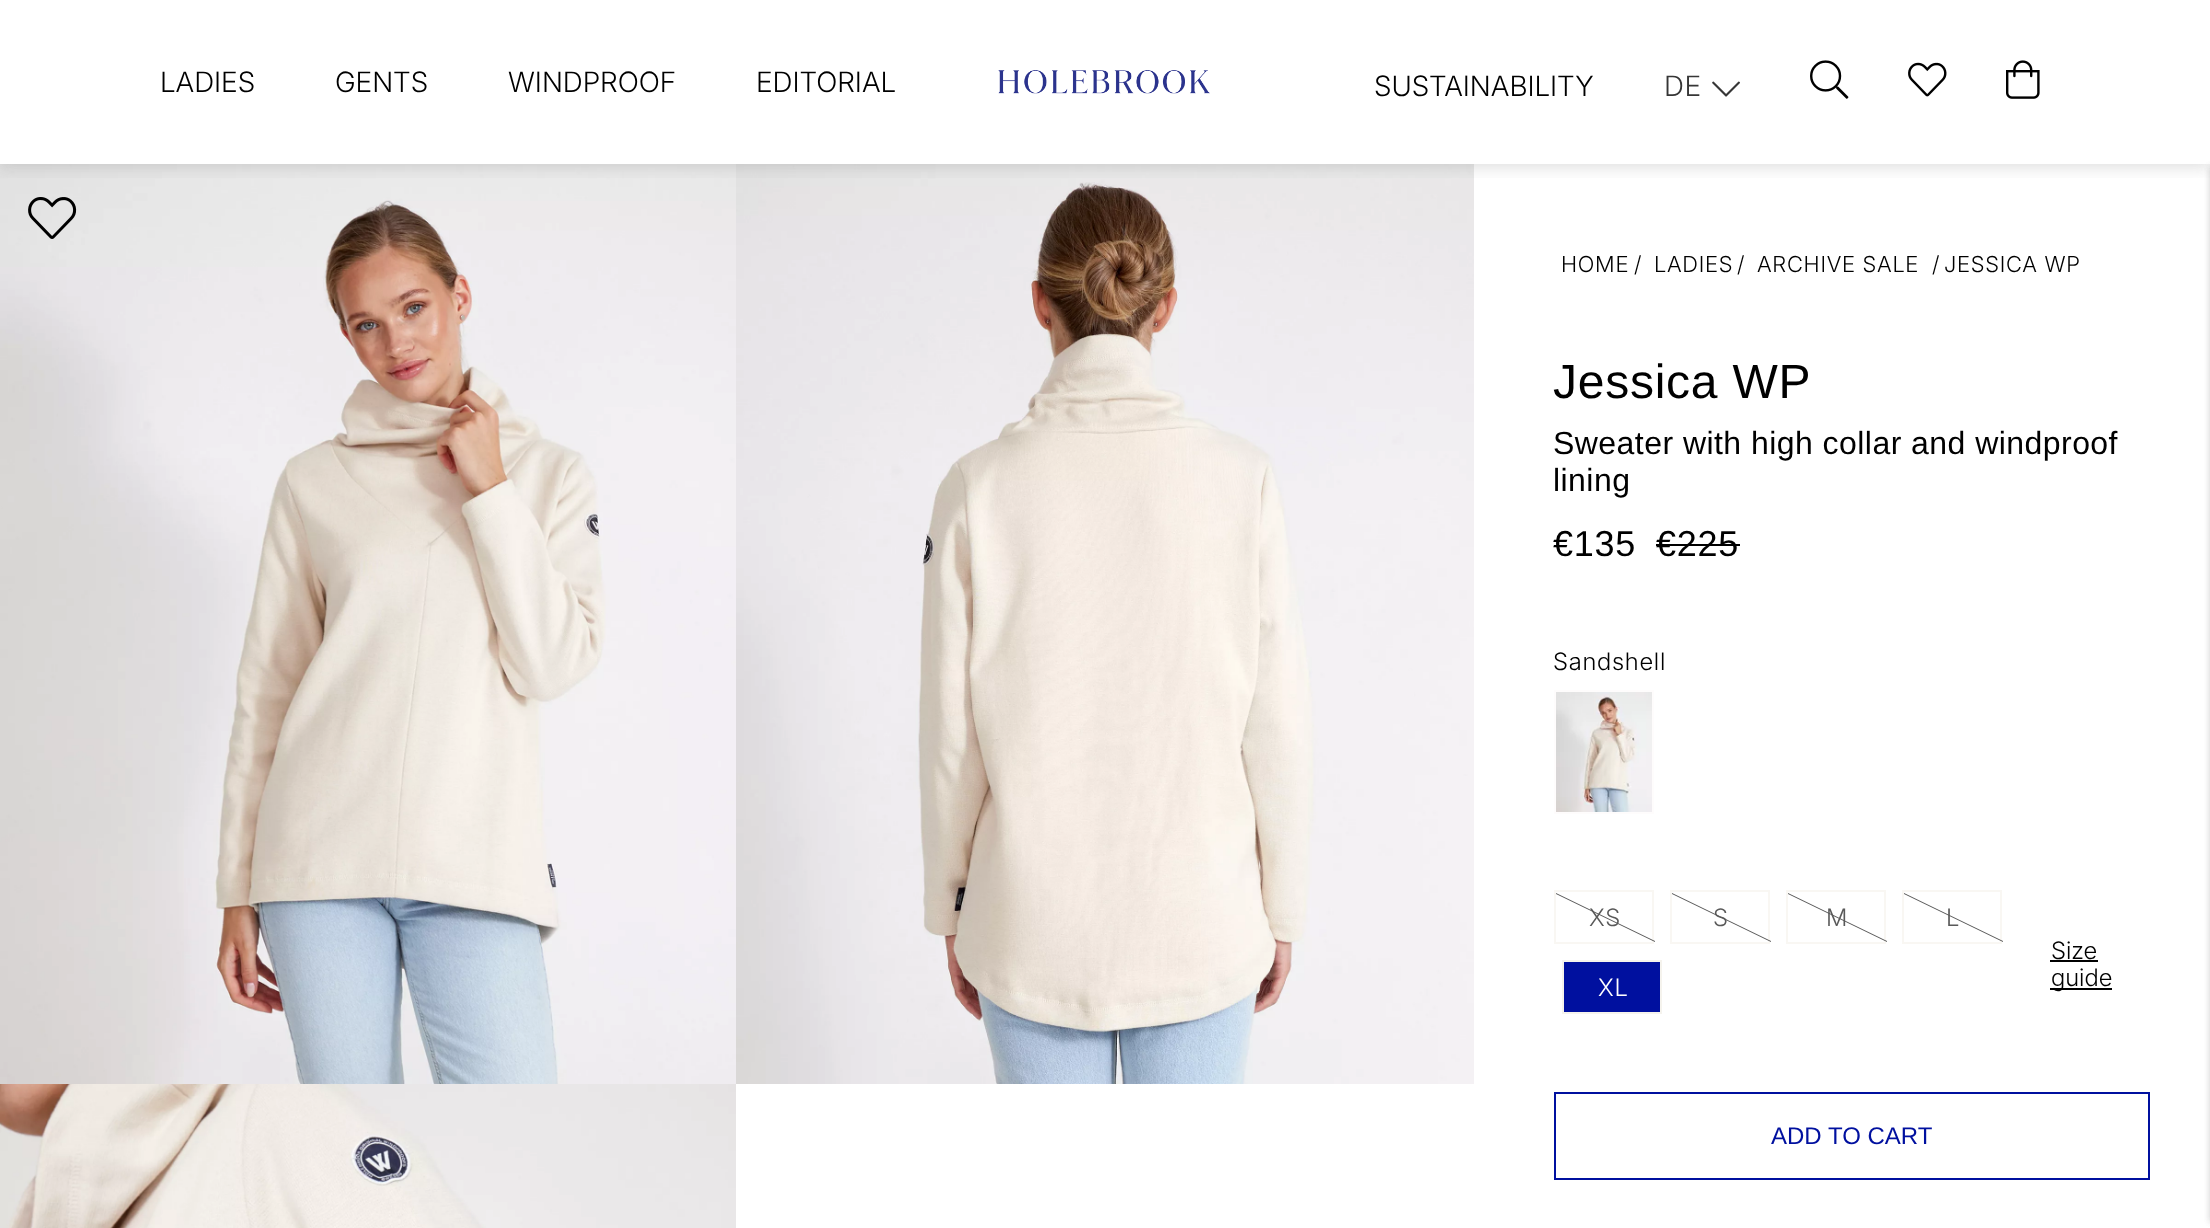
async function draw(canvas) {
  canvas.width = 2210
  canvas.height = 1228
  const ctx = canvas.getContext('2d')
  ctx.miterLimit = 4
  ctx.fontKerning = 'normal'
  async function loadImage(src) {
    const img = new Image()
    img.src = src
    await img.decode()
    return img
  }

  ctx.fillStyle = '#fff'
  ctx.fillRect(0, 0, 2210, 1228)
  ctx.drawImage(await loadImage('image5.png'), 0, 164, 736, 920)
  ctx.drawImage(await loadImage('image6.png'), 736, 164, 738, 920)
  ctx.save()
  ctx.beginPath()
  ctx.rect(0, 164, 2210, 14)
  ctx.clip()
  ctx.fillStyle = '#63636333'
  ctx.filter = 'blur(8px)'
  ctx.beginPath()
  ctx.rect(0, 4, 2210, 164)
  ctx.fill()
  ctx.filter = 'none'
  ctx.restore()
  ctx.font = '300 28px Inter'
  ctx.fillStyle = '#000'
  ctx.fillText('LADIES', 160, 92)
  ctx.fillText('GENTS', 335, 92)
  ctx.fillText('WINDPROOF', 508, 92)
  ctx.fillText('EDITORIAL', 756, 92)
  ctx.drawImage(await loadImage('image0.png'), 998, 70, 212, 24)
  ctx.drawImage(await loadImage('image1.png'), 1810, 60, 39, 39)
  ctx.drawImage(await loadImage('image2.png'), 2006, 60, 34, 39)
  ctx.fillStyle = '#0000001a'
  ctx.filter = 'blur(3px)'
  ctx.beginPath()
  ctx.rect(2210, 166, 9, 1056)
  ctx.fill()
  ctx.filter = 'none'
  ctx.fillStyle = '#000'
  ctx.fillText('SUSTAINABILITY', 1374, 96)
  ctx.letterSpacing = '0.75px'
  ctx.fillStyle = '#363636'
  ctx.fillText('DE', 1664, 96)
  ctx.drawImage(await loadImage('image3.png'), 1712, 81, 28, 16)
  ctx.drawImage(await loadImage('image4.png'), 1908, 62, 39, 35)
  ctx.fillStyle = '#0000001a'
  ctx.filter = 'blur(3px)'
  ctx.beginPath()
  ctx.rect(2210, 166, 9, 1056)
  ctx.fill()
  ctx.filter = 'none'
  ctx.drawImage(await loadImage('image7.png'), 0, 1084, 736, 144)
  ctx.drawImage(await loadImage('image8.png'), 28, 197, 49, 42)
  ctx.font = '300 22px Inter'
  ctx.fillStyle = '#000'
  ctx.fillText('HOME', 1561, 272)
  ctx.fillText('/', 1634, 272)
  ctx.fillText('LADIES', 1654, 272)
  ctx.fillText('/', 1737, 272)
  ctx.fillText('ARCHIVE SALE', 1757, 272)
  ctx.fillText('/', 1932, 272)
  ctx.fillText('JESSICA WP', 1944, 272)
  ctx.font = '48px Liberation Sans'
  ctx.fillText('Jessica WP', 1553, 398)
  ctx.letterSpacing = '0.45px'
  ctx.font = '32px Liberation Sans'
  ctx.fillText('Sweater with high collar and windproof', 1553, 454)
  ctx.fillText('lining', 1553, 491)
  ctx.letterSpacing = '0.75px'
  ctx.font = '36px Liberation Sans'
  ctx.fillText('€135', 1553, 556)
  ctx.fillText('€225', 1656, 556)
  ctx.fillRect(1656, 544, 84, 2)
  ctx.font = '300 24px Inter'
  ctx.fillText('Sandshell', 1553, 670)
  ctx.strokeStyle = '#fefcfc'
  ctx.lineWidth = 2
  ctx.strokeRect(1555, 691, 98, 122)
  ctx.drawImage(await loadImage('image9.png'), 1556, 692, 96, 120)
  ctx.strokeStyle = '#f9f7f3'
  ctx.strokeRect(1555, 891, 98, 52)
  ctx.fillStyle = '#595959'
  ctx.beginPath()
  ctx.moveTo(1556, 894)
  ctx.lineTo(1556, 893)
  ctx.lineTo(1655, 941)
  ctx.lineTo(1655, 942)
  ctx.closePath()
  ctx.fill()
  ctx.fillText('XS', 1589, 926)
  ctx.strokeRect(1671, 891, 98, 52)
  ctx.beginPath()
  ctx.moveTo(1672, 894)
  ctx.lineTo(1672, 893)
  ctx.lineTo(1771, 941)
  ctx.lineTo(1771, 942)
  ctx.closePath()
  ctx.fill()
  ctx.fillText('S', 1713, 926)
  ctx.strokeRect(1787, 891, 98, 52)
  ctx.beginPath()
  ctx.moveTo(1788, 894)
  ctx.lineTo(1788, 893)
  ctx.lineTo(1887, 941)
  ctx.lineTo(1887, 942)
  ctx.closePath()
  ctx.fill()
  ctx.fillText('M', 1826, 926)
  ctx.strokeRect(1903, 891, 98, 52)
  ctx.beginPath()
  ctx.moveTo(1904, 894)
  ctx.lineTo(1904, 893)
  ctx.lineTo(2003, 941)
  ctx.lineTo(2003, 942)
  ctx.closePath()
  ctx.fill()
  ctx.fillText('L', 1946, 926)
  ctx.fillStyle = '#00109f'
  ctx.beginPath()
  ctx.rect(1563, 961, 98, 52)
  ctx.fill()
  ctx.strokeStyle = '#f5f3ed'
  ctx.stroke()
  ctx.fillStyle = '#fff'
  ctx.fillText('XL', 1598, 996)
  ctx.letterSpacing = '0px'
  ctx.fillStyle = '#000'
  ctx.fillText('Size', 2051, 959)
  ctx.fillRect(2050, 960, 48, 2)
  ctx.fillRect(2050, 988, 62, 2)
  ctx.fillText('guide', 2051, 986)
  ctx.strokeStyle = '#00109f'
  ctx.strokeRect(1555, 1093, 594, 86)
  ctx.font = '24px Liberation Sans'
  ctx.fillStyle = '#00109f'
  ctx.fillText('ADD TO CART', 1771, 1144)
}

draw(document.querySelector('canvas'))
